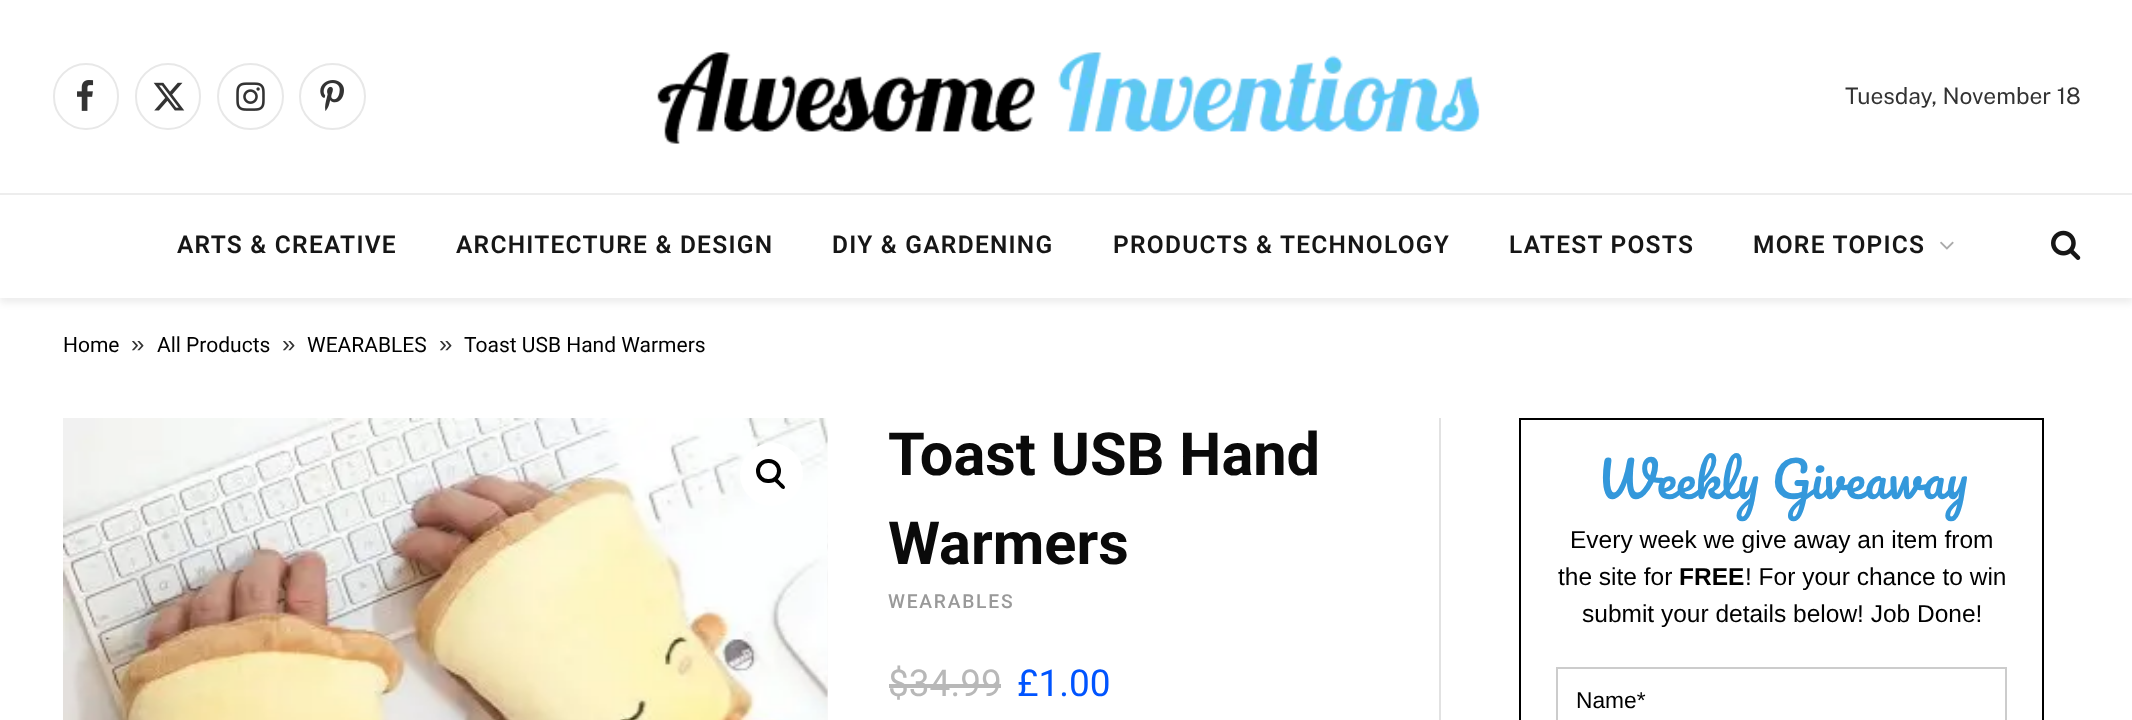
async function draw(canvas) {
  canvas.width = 2132
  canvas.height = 720
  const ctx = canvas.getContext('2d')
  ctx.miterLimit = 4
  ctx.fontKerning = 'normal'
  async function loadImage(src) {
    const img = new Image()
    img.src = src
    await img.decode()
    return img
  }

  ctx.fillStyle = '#fff'
  ctx.fillRect(0, 0, 2132, 720)
  ctx.save()
  ctx.beginPath()
  ctx.moveTo(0, 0)
  ctx.lineTo(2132, 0)
  ctx.lineTo(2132, 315)
  ctx.lineTo(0, 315)
  ctx.closePath()
  ctx.moveTo(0, 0)
  ctx.lineTo(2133, 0)
  ctx.lineTo(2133, 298)
  ctx.lineTo(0, 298)
  ctx.closePath()
  ctx.clip('evenodd')
  ctx.fillStyle = '#00000012'
  ctx.filter = 'blur(3.5px)'
  ctx.beginPath()
  ctx.rect(0, 5, 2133, 298)
  ctx.fill()
  ctx.filter = 'none'
  ctx.restore()
  ctx.beginPath()
  ctx.roundRect(54, 64, 64, 65, 32)
  ctx.strokeStyle = '#e8e8e8'
  ctx.lineWidth = 2
  ctx.stroke()
  ctx.drawImage(await loadImage('image0.png'), 77, 80, 17, 31)
  ctx.beginPath()
  ctx.roundRect(136, 64, 64, 65, 32)
  ctx.stroke()
  ctx.drawImage(await loadImage('image1.png'), 153, 82, 32, 29)
  ctx.beginPath()
  ctx.arc(250.5, 96.5, 32.5, 0, 2 * Math.PI)
  ctx.stroke()
  ctx.drawImage(await loadImage('image2.png'), 236, 82, 29, 29)
  ctx.beginPath()
  ctx.arc(332.5, 96.5, 32.5, 0, 2 * Math.PI)
  ctx.stroke()
  ctx.drawImage(await loadImage('image3.png'), 320, 80, 24, 31)
  ctx.drawImage(await loadImage('image4.png'), 657, 52, 823, 92)
  ctx.font = '22.75px Public Sans'
  ctx.fillStyle = '#333'
  ctx.fillText('Tuesday, November 18', 1845, 104)
  ctx.fillStyle = '#ededed'
  ctx.fillRect(0, 193, 2132, 2)
  ctx.letterSpacing = '1.25px'
  ctx.font = '600 24.5px Roboto'
  ctx.fillStyle = '#161616'
  ctx.fillText('ARTS & CREATIVE', 177, 253)
  ctx.fillText('ARCHITECTURE & DESIGN', 456, 253)
  ctx.fillText('DIY & GARDENING', 832, 253)
  ctx.fillText('PRODUCTS & TECHNOLOGY', 1113, 253)
  ctx.fillText('LATEST POSTS', 1509, 253)
  ctx.fillText('MORE TOPICS', 1753, 253)
  ctx.drawImage(await loadImage('image5.png'), 1940, 241, 14, 9)
  ctx.drawImage(await loadImage('image6.png'), 2051, 230, 30, 30)
  ctx.letterSpacing = '0px'
  ctx.font = '21px Roboto'
  ctx.fillStyle = '#000'
  ctx.fillText('Home', 63, 352)
  ctx.font = '24px Liberation Sans'
  ctx.fillStyle = '#333'
  ctx.fillText('»', 131, 352)
  ctx.font = '21px Roboto'
  ctx.fillStyle = '#000'
  ctx.fillText('All Products', 157, 352)
  ctx.font = '24px Liberation Sans'
  ctx.fillStyle = '#333'
  ctx.fillText('»', 282, 352)
  ctx.font = '21px Roboto'
  ctx.fillStyle = '#000'
  ctx.fillText('WEARABLES', 307, 352)
  ctx.font = '24px Liberation Sans'
  ctx.fillStyle = '#333'
  ctx.fillText('»', 439, 352)
  ctx.font = '21px Roboto'
  ctx.fillStyle = '#000'
  ctx.fillText('Toast USB Hand Warmers', 464, 352)
  ctx.drawImage(await loadImage('image8.png'), 827, 450, 1, 270)
  ctx.drawImage(await loadImage('image7.png'), 63, 418, 765, 302)
  ctx.fillStyle = '#fff'
  ctx.beginPath()
  ctx.arc(771.5, 474.5, 31.5, 0, 2 * Math.PI)
  ctx.fill()
  ctx.beginPath()
  ctx.roundRect(758, 461, 21, 20, 10)
  ctx.strokeStyle = '#000'
  ctx.lineWidth = 4
  ctx.stroke()
  ctx.fillStyle = '#000'
  ctx.beginPath()
  ctx.moveTo(774.5, 478.5)
  ctx.bezierCurveTo(776.5, 476.5, 780, 481.5, 781, 482.5)
  ctx.bezierCurveTo(782, 483.5, 786.5, 486.5, 784.5, 488.5)
  ctx.bezierCurveTo(782.5, 490.5, 779.5, 486, 778.5, 485)
  ctx.bezierCurveTo(777.5, 484, 772.5, 480.5, 774.5, 478.5)
  ctx.closePath()
  ctx.fill()
  ctx.font = 'bold 59.5px Roboto'
  ctx.fillStyle = '#0a0a0a'
  ctx.fillText('Toast USB Hand', 888, 475)
  ctx.fillText('Warmers', 888, 564)
  ctx.letterSpacing = '1.75px'
  ctx.font = '500 19.25px Roboto'
  ctx.fillStyle = '#999'
  ctx.fillText('WEARABLES', 888, 608)
  ctx.letterSpacing = '0px'
  ctx.font = '37px Roboto'
  ctx.fillStyle = '#b8b8b8'
  ctx.fillText('$34.99', 888, 696)
  ctx.fillRect(889, 684, 112, 4)
  ctx.fillStyle = '#0054ff'
  ctx.fillText('£1.00', 1017, 696)
  ctx.fillStyle = '#e2e2e2'
  ctx.fillRect(1439, 418, 2, 302)
  ctx.lineWidth = 2
  ctx.strokeRect(1520, 419, 523, 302)
  ctx.font = '49px Pacifico'
  ctx.fillStyle = '#3498db'
  ctx.fillText('Weekly Giveaway', 1597, 499)
  ctx.font = '24.5px Liberation Sans'
  ctx.fillStyle = '#000'
  ctx.fillText('Every week we give away an item from', 1570, 548)
  ctx.fillText('the site for', 1558, 585)
  ctx.font = 'bold 24.5px Liberation Sans'
  ctx.fillText('FREE', 1679, 585)
  ctx.font = '24.5px Liberation Sans'
  ctx.fillText('! For your chance to win', 1745, 585)
  ctx.fillText('submit your details below! Job Done!', 1582, 622)
  ctx.strokeStyle = '#ccc'
  ctx.strokeRect(1557, 668, 449, 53)
  ctx.font = '22.75px Liberation Sans'
  ctx.fillText('Name*', 1576, 708)
}

draw(document.querySelector('canvas'))
